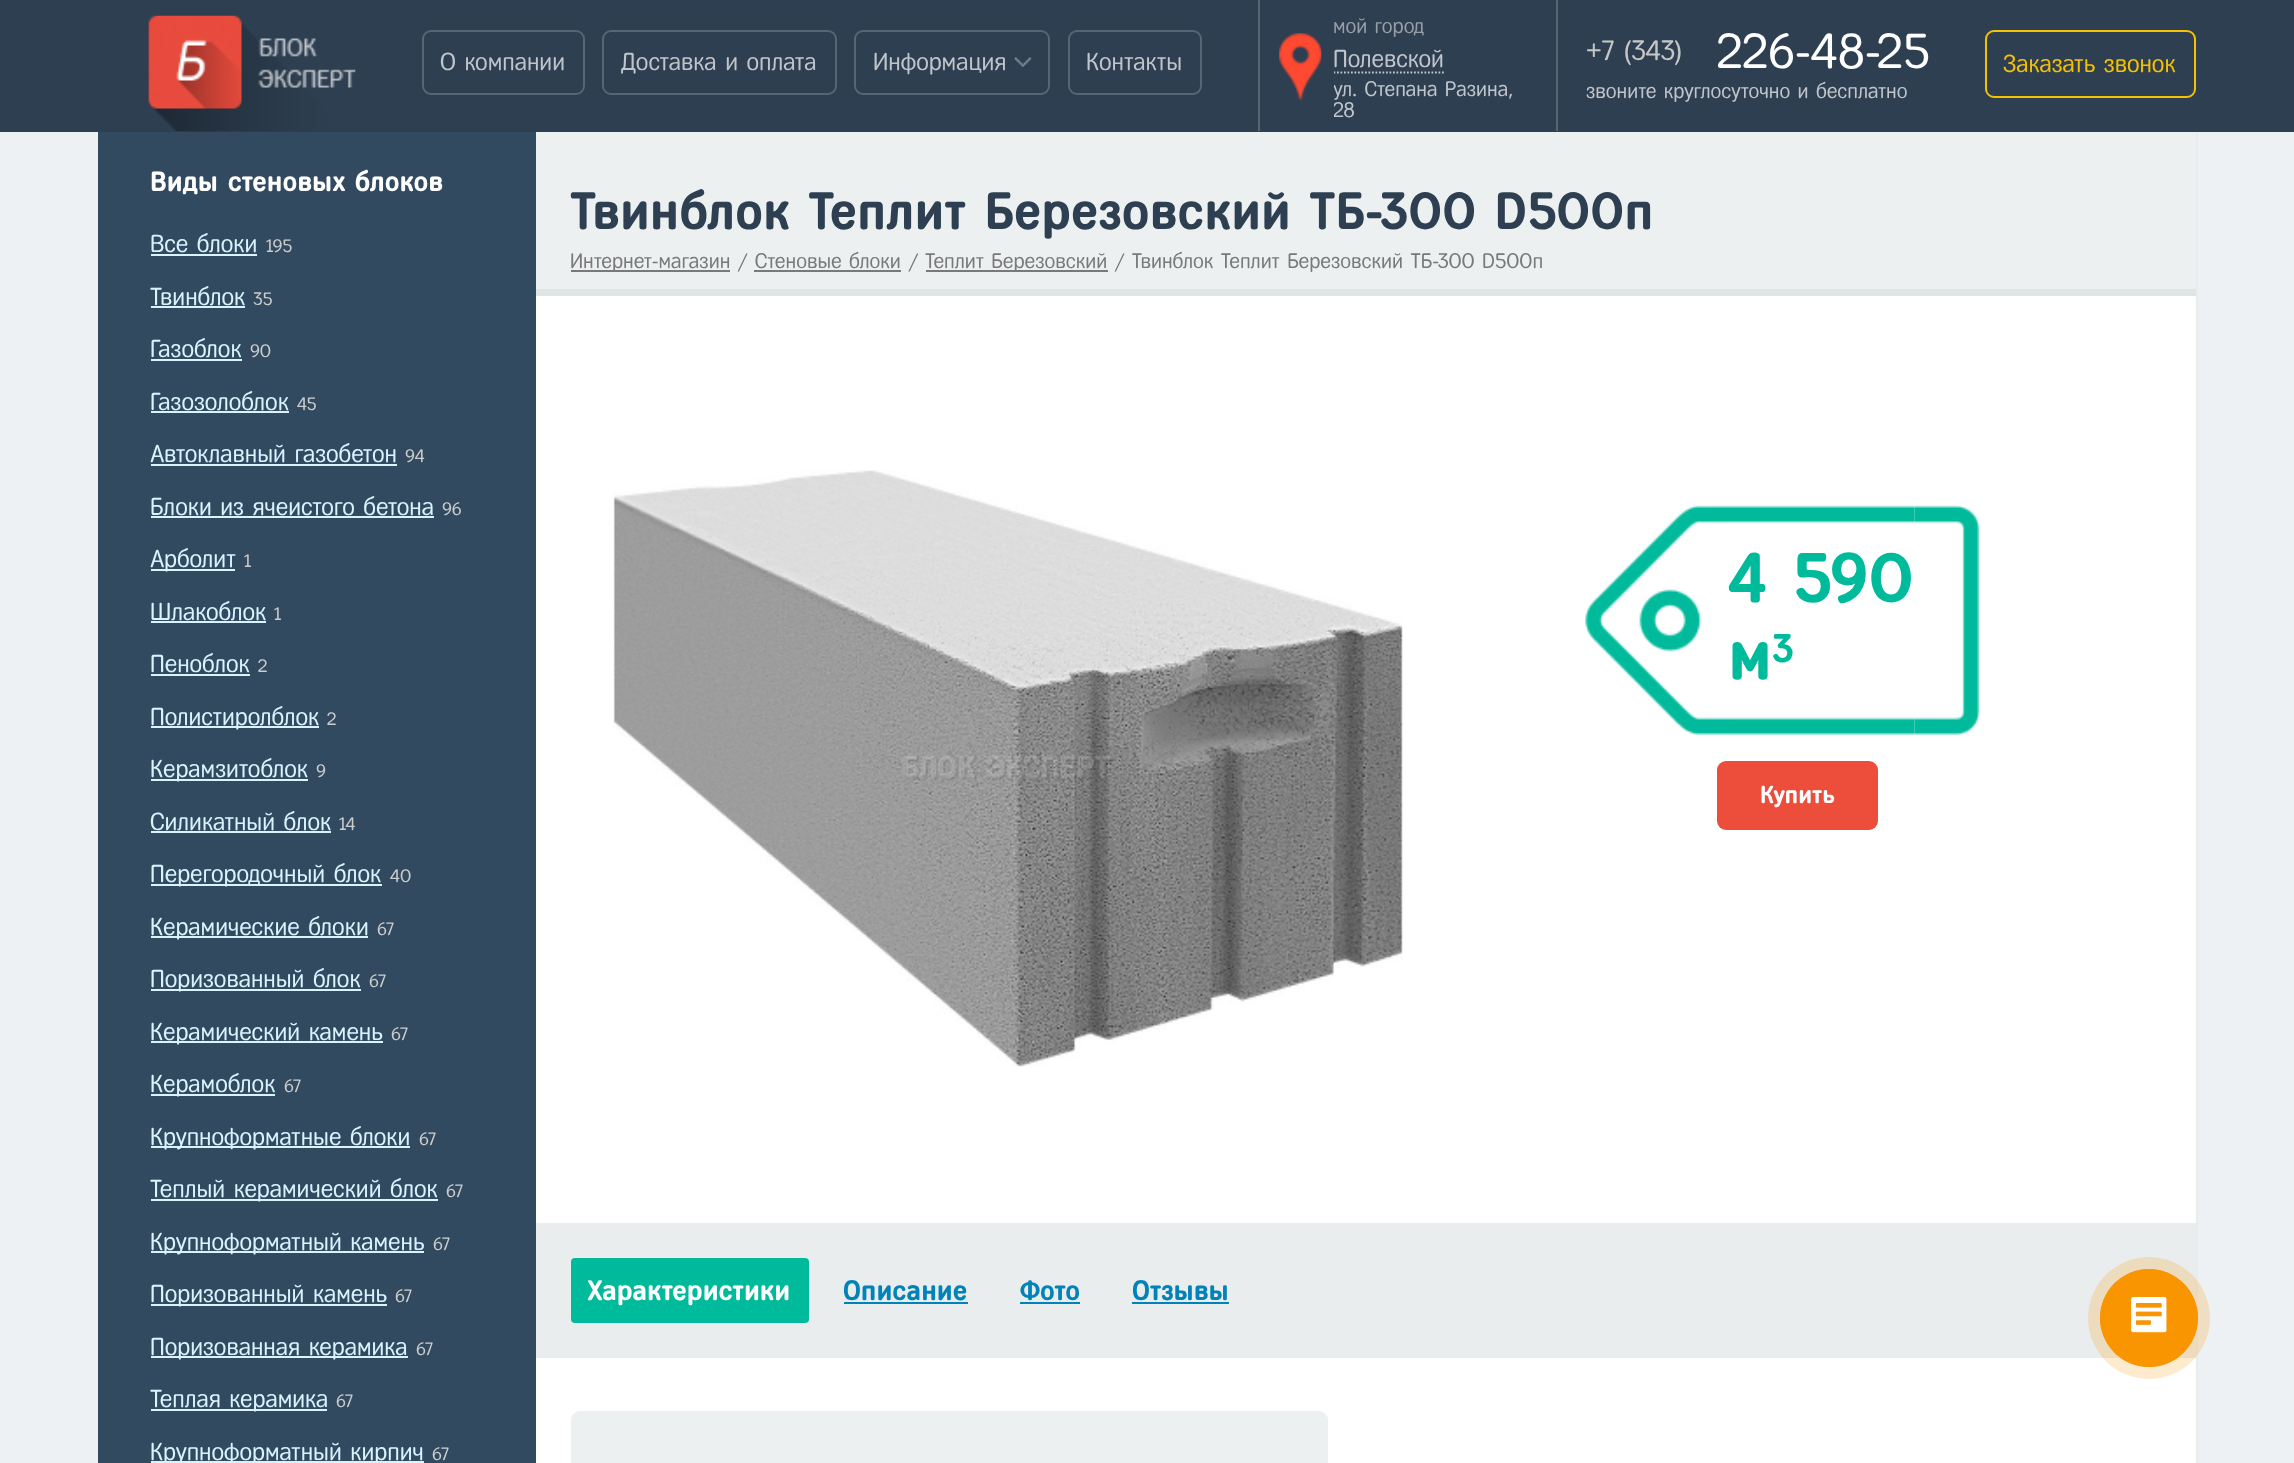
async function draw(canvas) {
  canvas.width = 2294
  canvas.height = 1463
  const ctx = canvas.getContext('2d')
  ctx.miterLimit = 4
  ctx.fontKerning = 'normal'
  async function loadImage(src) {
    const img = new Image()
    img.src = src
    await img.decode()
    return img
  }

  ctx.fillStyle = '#eef1f4'
  ctx.fillRect(0, 0, 2294, 1463)
  ctx.fillStyle = '#2e3f51'
  ctx.fillRect(0, 0, 2294, 132)
  ctx.drawImage(await loadImage('image0.png'), 148, 15, 208, 117)
  ctx.beginPath()
  ctx.roundRect(423, 31, 161, 63, 8)
  ctx.strokeStyle = '#586574'
  ctx.lineWidth = 2
  ctx.stroke()
  ctx.font = '24.5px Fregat'
  ctx.fillStyle = '#c0c5cb'
  ctx.fillText('О компании', 440, 70)
  ctx.beginPath()
  ctx.roundRect(603, 31, 233, 63, 8)
  ctx.stroke()
  ctx.fillText('Доставка и оплата', 621, 70)
  ctx.beginPath()
  ctx.roundRect(855, 31, 194, 63, 8)
  ctx.stroke()
  ctx.fillText('Информация', 873, 70)
  ctx.drawImage(await loadImage('image1.png'), 1014, 57, 18, 11)
  ctx.beginPath()
  ctx.roundRect(1069, 31, 132, 63, 8)
  ctx.stroke()
  ctx.fillText('Контакты', 1086, 70)
  ctx.fillStyle = '#586574'
  ctx.fillRect(1556, 0, 2, 131)
  ctx.fillRect(1258, 0, 2, 131)
  ctx.drawImage(await loadImage('image2.png'), 1279, 33, 43, 68)
  ctx.font = '21px Fregat'
  ctx.fillStyle = '#979fa8'
  ctx.fillText('мой город', 1333, 33)
  ctx.save()
  ctx.beginPath()
  ctx.rect(1334, 46, 201, 75)
  ctx.clip()
  ctx.beginPath()
  ctx.moveTo(1333.5, 72.5)
  ctx.lineTo(1444, 72.5)
  ctx.strokeStyle = '#c0c5cb'
  ctx.lineWidth = 1.8
  ctx.setLineDash([1.75, 1.75])
  ctx.stroke()
  ctx.restore()
  ctx.font = '24.5px Fregat'
  ctx.fillStyle = '#c0c5cb'
  ctx.fillText('Полевской', 1333, 67)
  ctx.save()
  ctx.beginPath()
  ctx.rect(1334, 46, 201, 75)
  ctx.clip()
  ctx.font = '21px Fregat'
  ctx.fillText('ул. Степана Разина,', 1333, 96)
  ctx.fillText('28', 1333, 117)
  ctx.restore()
  ctx.font = '28px Fregat'
  ctx.fillStyle = '#c6c6c6'
  ctx.fillText('+7 (343)', 1586, 60)
  ctx.font = '49px Fregat'
  ctx.fillStyle = '#fff'
  ctx.fillText('226-48-25', 1717, 68)
  ctx.font = '21px Fregat'
  ctx.fillStyle = '#c0c5cb'
  ctx.fillText('звоните круглосуточно и бесплатно', 1586, 98)
  ctx.beginPath()
  ctx.roundRect(1986, 31, 209, 66, 8)
  ctx.strokeStyle = '#f6c100'
  ctx.stroke()
  ctx.font = '24.5px Fregat'
  ctx.fillStyle = '#f6c100'
  ctx.fillText('Заказать звонок', 2003, 72)
  ctx.fillStyle = '#314a60'
  ctx.fillRect(98, 132, 438, 1331)
  ctx.font = 'bold 28px Fregat'
  ctx.fillStyle = '#fff'
  ctx.fillText('Виды стеновых блоков', 150, 191)
  ctx.font = '24.5px Fregat'
  ctx.fillStyle = '#d9f3ff'
  ctx.fillText('Все блоки', 150, 252)
  ctx.fillRect(151, 254, 106, 2)
  ctx.font = '18px Fregat'
  ctx.fillStyle = '#ccc'
  ctx.fillText('195', 266, 252)
  ctx.font = '24.5px Fregat'
  ctx.fillStyle = '#d9f3ff'
  ctx.fillText('Твинблок', 150, 305)
  ctx.fillRect(151, 306, 94, 2)
  ctx.font = '18px Fregat'
  ctx.fillStyle = '#ccc'
  ctx.fillText('35', 253, 305)
  ctx.font = '24.5px Fregat'
  ctx.fillStyle = '#d9f3ff'
  ctx.fillText('Газоблок', 150, 357)
  ctx.fillRect(151, 359, 91, 2)
  ctx.font = '18px Fregat'
  ctx.fillStyle = '#ccc'
  ctx.fillText('90', 250, 357)
  ctx.font = '24.5px Fregat'
  ctx.fillStyle = '#d9f3ff'
  ctx.fillText('Газозолоблок', 150, 410)
  ctx.fillRect(151, 411, 138, 2)
  ctx.font = '18px Fregat'
  ctx.fillStyle = '#ccc'
  ctx.fillText('45', 297, 410)
  ctx.font = '24.5px Fregat'
  ctx.fillStyle = '#d9f3ff'
  ctx.fillText('Автоклавный газобетон', 150, 462)
  ctx.fillRect(151, 464, 246, 2)
  ctx.font = '18px Fregat'
  ctx.fillStyle = '#ccc'
  ctx.fillText('94', 405, 462)
  ctx.font = '24.5px Fregat'
  ctx.fillStyle = '#d9f3ff'
  ctx.fillText('Блоки из ячеистого бетона', 150, 515)
  ctx.fillRect(151, 516, 283, 2)
  ctx.font = '18px Fregat'
  ctx.fillStyle = '#ccc'
  ctx.fillText('96', 442, 515)
  ctx.fillStyle = '#d9f3ff'
  ctx.fillRect(151, 569, 84, 2)
  ctx.font = '24.5px Fregat'
  ctx.fillText('Арболит', 150, 567)
  ctx.font = '18px Fregat'
  ctx.fillStyle = '#ccc'
  ctx.fillText('1', 244, 567)
  ctx.font = '24.5px Fregat'
  ctx.fillStyle = '#d9f3ff'
  ctx.fillText('Шлакоблок', 150, 620)
  ctx.fillRect(151, 621, 115, 2)
  ctx.font = '18px Fregat'
  ctx.fillStyle = '#ccc'
  ctx.fillText('1', 274, 620)
  ctx.font = '24.5px Fregat'
  ctx.fillStyle = '#d9f3ff'
  ctx.fillText('Пеноблок', 150, 672)
  ctx.fillRect(151, 674, 99, 2)
  ctx.font = '18px Fregat'
  ctx.fillStyle = '#ccc'
  ctx.fillText('2', 258, 672)
  ctx.fillStyle = '#d9f3ff'
  ctx.fillRect(151, 726, 168, 2)
  ctx.font = '24.5px Fregat'
  ctx.fillText('Полистиролблок', 150, 725)
  ctx.font = '18px Fregat'
  ctx.fillStyle = '#ccc'
  ctx.fillText('2', 327, 725)
  ctx.fillStyle = '#d9f3ff'
  ctx.fillRect(151, 779, 157, 2)
  ctx.font = '24.5px Fregat'
  ctx.fillText('Керамзитоблок', 150, 777)
  ctx.font = '18px Fregat'
  ctx.fillStyle = '#ccc'
  ctx.fillText('9', 316, 777)
  ctx.font = '24.5px Fregat'
  ctx.fillStyle = '#d9f3ff'
  ctx.fillText('Силикатный блок', 150, 830)
  ctx.fillRect(151, 831, 180, 2)
  ctx.font = '18px Fregat'
  ctx.fillStyle = '#ccc'
  ctx.fillText('14', 339, 830)
  ctx.fillStyle = '#d9f3ff'
  ctx.fillRect(151, 884, 231, 2)
  ctx.font = '24.5px Fregat'
  ctx.fillText('Перегородочный блок', 150, 882)
  ctx.font = '18px Fregat'
  ctx.fillStyle = '#ccc'
  ctx.fillText('40', 390, 882)
  ctx.fillStyle = '#d9f3ff'
  ctx.fillRect(151, 936, 217, 2)
  ctx.font = '24.5px Fregat'
  ctx.fillText('Керамические блоки', 150, 935)
  ctx.font = '18px Fregat'
  ctx.fillStyle = '#ccc'
  ctx.fillText('67', 377, 935)
  ctx.fillStyle = '#d9f3ff'
  ctx.fillRect(151, 989, 210, 2)
  ctx.font = '24.5px Fregat'
  ctx.fillText('Поризованный блок', 150, 987)
  ctx.font = '18px Fregat'
  ctx.fillStyle = '#ccc'
  ctx.fillText('67', 369, 987)
  ctx.fillStyle = '#d9f3ff'
  ctx.fillRect(151, 1041, 232, 2)
  ctx.font = '24.5px Fregat'
  ctx.fillText('Керамический камень', 150, 1040)
  ctx.font = '18px Fregat'
  ctx.fillStyle = '#ccc'
  ctx.fillText('67', 391, 1040)
  ctx.fillStyle = '#d9f3ff'
  ctx.fillRect(151, 1094, 124, 2)
  ctx.font = '24.5px Fregat'
  ctx.fillText('Керамоблок', 150, 1092)
  ctx.font = '18px Fregat'
  ctx.fillStyle = '#ccc'
  ctx.fillText('67', 284, 1092)
  ctx.fillStyle = '#d9f3ff'
  ctx.fillRect(151, 1146, 259, 2)
  ctx.font = '24.5px Fregat'
  ctx.fillText('Крупноформатные блоки', 150, 1145)
  ctx.font = '18px Fregat'
  ctx.fillStyle = '#ccc'
  ctx.fillText('67', 419, 1145)
  ctx.fillStyle = '#d9f3ff'
  ctx.fillRect(151, 1199, 287, 2)
  ctx.font = '24.5px Fregat'
  ctx.fillText('Теплый керамический блок', 150, 1197)
  ctx.font = '18px Fregat'
  ctx.fillStyle = '#ccc'
  ctx.fillText('67', 446, 1197)
  ctx.fillStyle = '#d9f3ff'
  ctx.fillRect(151, 1251, 273, 2)
  ctx.font = '24.5px Fregat'
  ctx.fillText('Крупноформатный камень', 150, 1250)
  ctx.font = '18px Fregat'
  ctx.fillStyle = '#ccc'
  ctx.fillText('67', 433, 1250)
  ctx.fillStyle = '#d9f3ff'
  ctx.fillRect(151, 1304, 236, 2)
  ctx.font = '24.5px Fregat'
  ctx.fillText('Поризованный камень', 150, 1302)
  ctx.font = '18px Fregat'
  ctx.fillStyle = '#ccc'
  ctx.fillText('67', 395, 1302)
  ctx.fillStyle = '#d9f3ff'
  ctx.fillRect(151, 1356, 257, 2)
  ctx.font = '24.5px Fregat'
  ctx.fillText('Поризованная керамика', 150, 1355)
  ctx.font = '18px Fregat'
  ctx.fillStyle = '#ccc'
  ctx.fillText('67', 416, 1355)
  ctx.fillStyle = '#d9f3ff'
  ctx.fillRect(151, 1409, 176, 2)
  ctx.font = '24.5px Fregat'
  ctx.fillText('Теплая керамика', 150, 1407)
  ctx.font = '18px Fregat'
  ctx.fillStyle = '#ccc'
  ctx.fillText('67', 336, 1407)
  ctx.fillStyle = '#d9f3ff'
  ctx.fillRect(151, 1461, 273, 2)
  ctx.font = '24.5px Fregat'
  ctx.fillText('Крупноформатный кирпич', 150, 1460)
  ctx.font = '18px Fregat'
  ctx.fillStyle = '#ccc'
  ctx.fillText('67', 432, 1460)
  ctx.fillStyle = '#fff'
  ctx.fillRect(536, 296, 1660, 1167)
  ctx.fillStyle = '#e9ecec'
  ctx.fillRect(2196, 132, 2, 1331)
  ctx.fillStyle = '#ecf0f1'
  ctx.fillRect(536, 132, 1660, 157)
  ctx.fillStyle = '#dfe4e4'
  ctx.fillRect(536, 289, 1660, 7)
  ctx.font = 'bold 52.5px Fregat'
  ctx.fillStyle = '#2d3f51'
  ctx.fillText('Твинблок Теплит Березовский ТБ-300 D500п', 570, 229)
  ctx.fillStyle = '#797979'
  ctx.fillRect(571, 270, 159, 2)
  ctx.font = '21px Fregat'
  ctx.fillText('Интернет-магазин / Стеновые блоки /', 570, 268)
  ctx.fillRect(926, 270, 182, 2)
  ctx.fillText('Теплит Березовский / Твинблок Теплит Березовский ТБ-300 D500п', 925, 268)
  ctx.fillRect(754, 270, 147, 2)
  ctx.drawImage(await loadImage('image3.png'), 613, 470, 790, 597)
  ctx.drawImage(await loadImage('image4.png'), 1585, 505, 144, 230)
  ctx.drawImage(await loadImage('image6.png'), 1914, 505, 66, 230)
  ctx.drawImage(await loadImage('image5.png'), 1729, 505, 186, 230)
  ctx.font = 'bold 70px Fregat'
  ctx.fillStyle = '#00bb9b'
  ctx.fillText('4 590', 1728, 602)
  ctx.fillText('м', 1728, 679)
  ctx.font = 'bold 40px Fregat'
  ctx.fillText('3', 1772, 662)
  ctx.fillStyle = '#ed4d3b'
  ctx.beginPath()
  ctx.roundRect(1717, 761, 161, 69, 9)
  ctx.fill()
  ctx.font = 'bold 24.5px Fregat'
  ctx.fillStyle = '#fff'
  ctx.fillText('Купить', 1760, 803)
  ctx.fillStyle = '#eaeded'
  ctx.fillRect(536, 1223, 1660, 135)
  ctx.fillStyle = '#00bb9b'
  ctx.beginPath()
  ctx.roundRect(571, 1258, 238, 65, 4)
  ctx.fill()
  ctx.font = 'bold 28px Fregat'
  ctx.fillStyle = '#fff'
  ctx.fillText('Характеристики', 587, 1300)
  ctx.fillStyle = '#0182b9'
  ctx.fillText('Описание', 843, 1300)
  ctx.fillRect(844, 1302, 124, 2)
  ctx.fillText('Фото', 1020, 1300)
  ctx.fillRect(1020, 1302, 60, 2)
  ctx.fillText('Отзывы', 1132, 1300)
  ctx.fillRect(1132, 1302, 97, 2)
  ctx.fillStyle = '#ecf0f1'
  ctx.beginPath()
  ctx.roundRect(571, 1411, 757, 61, 9)
  ctx.fill()
  ctx.fillStyle = '#f9950033'
  ctx.beginPath()
  ctx.arc(2149, 1318, 61, 0, 2 * Math.PI)
  ctx.fill()
  ctx.beginPath()
  ctx.arc(2149, 1318, 48.5, 0, 2 * Math.PI)
  ctx.strokeStyle = '#f99500'
  ctx.lineWidth = 1
  ctx.stroke()
  ctx.fillStyle = '#f99500'
  ctx.beginPath()
  ctx.arc(2149, 1318, 49, 0, 2 * Math.PI)
  ctx.fill()
  ctx.drawImage(await loadImage('image7.png'), 2131, 1297, 36, 36)
}

draw(document.querySelector('canvas'))
